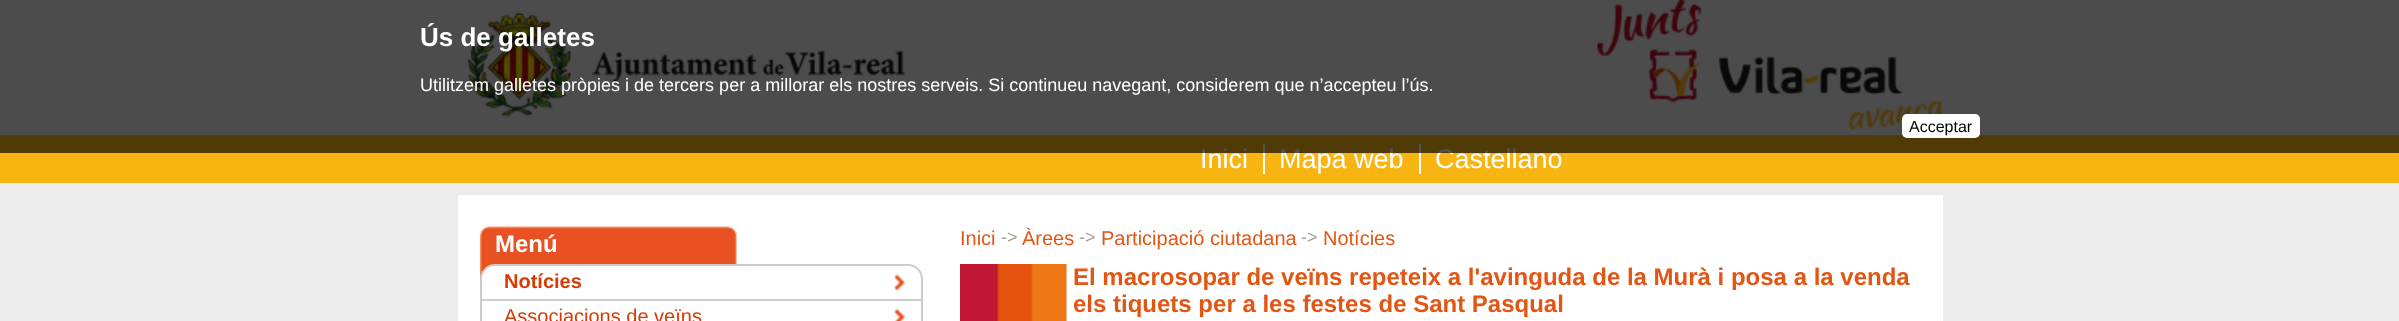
async function draw(canvas) {
  canvas.width = 2399
  canvas.height = 321
  const ctx = canvas.getContext('2d')
  ctx.miterLimit = 4
  ctx.fontKerning = 'normal'
  async function loadImage(src) {
    const img = new Image()
    img.src = src
    await img.decode()
    return img
  }

  ctx.fillStyle = '#ebebeb'
  ctx.fillRect(0, 0, 2399, 321)
  ctx.drawImage(await loadImage('image0.png'), 1597, 0, 346, 129)
  ctx.drawImage(await loadImage('image1.png'), 467, 11, 438, 107)
  ctx.fillStyle = '#f8b411'
  ctx.fillRect(0, 135, 2399, 48)
  ctx.font = '27px Liberation Sans'
  ctx.fillStyle = '#fff'
  ctx.fillText('Inici', 1200, 168)
  ctx.fillText('Mapa web', 1279, 168)
  ctx.fillRect(1263, 144, 2, 30)
  ctx.fillText('Castellano', 1435, 168)
  ctx.fillRect(1419, 144, 2, 30)
  ctx.fillStyle = '#000000ad'
  ctx.fillRect(0, 0, 2399, 153)
  ctx.font = 'bold 26px Liberation Sans'
  ctx.fillStyle = '#fff'
  ctx.fillText('Ús de galletes', 420, 46)
  ctx.font = '18px Liberation Sans'
  ctx.fillText('Utilitzem galletes pròpies i de tercers per a millorar els nostres serveis. Si continueu navegant, considerem que n’accepteu l’ús.', 420, 91)
  ctx.beginPath()
  ctx.roundRect(1902, 114, 78, 24, 5)
  ctx.fill()
  ctx.font = '16px Liberation Sans'
  ctx.fillStyle = '#000'
  ctx.fillText('Acceptar', 1909, 132)
  ctx.fillStyle = '#fff'
  ctx.fillRect(458, 195, 1485, 126)
  ctx.drawImage(await loadImage('image2.png'), 480, 226, 257, 53)
  ctx.font = 'bold 24px Liberation Sans'
  ctx.fillText('Menú', 495, 252)
  ctx.beginPath()
  ctx.roundRect(481, 265, 441, 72, 14)
  ctx.fill()
  ctx.strokeStyle = '#ccc'
  ctx.lineWidth = 2
  ctx.stroke()
  ctx.fillStyle = '#ccc'
  ctx.fillRect(482, 299, 439, 2)
  ctx.drawImage(await loadImage('image3.png'), 893, 274, 12, 18)
  ctx.font = 'bold 20px Liberation Sans'
  ctx.fillStyle = '#d73a03'
  ctx.fillText('Notícies', 504, 288)
  ctx.drawImage(await loadImage('image4.png'), 893, 308, 12, 13)
  ctx.font = '20px Liberation Sans'
  ctx.fillText('Associacions de veïns', 504, 323)
  ctx.fillStyle = '#e35513'
  ctx.fillText('Inici', 960, 245)
  ctx.font = '18px Liberation Sans'
  ctx.fillStyle = '#ab9c8f'
  ctx.fillText('->', 1001, 243)
  ctx.font = '20px Liberation Sans'
  ctx.fillStyle = '#e35513'
  ctx.fillText('Àrees', 1022, 245)
  ctx.font = '18px Liberation Sans'
  ctx.fillStyle = '#ab9c8f'
  ctx.fillText('->', 1079, 243)
  ctx.font = '20px Liberation Sans'
  ctx.fillStyle = '#e35513'
  ctx.fillText('Participació ciutadana', 1101, 245)
  ctx.font = '18px Liberation Sans'
  ctx.fillStyle = '#ab9c8f'
  ctx.fillText('->', 1301, 243)
  ctx.font = '20px Liberation Sans'
  ctx.fillStyle = '#e35513'
  ctx.fillText('Notícies', 1323, 245)
  ctx.drawImage(await loadImage('image5.png'), 960, 264, 107, 57)
  ctx.font = 'bold 24px Liberation Sans'
  ctx.fillText('El macrosopar de veïns repeteix a l\'avinguda de la Murà i posa a la venda', 1073, 285)
  ctx.fillText('els tiquets per a les festes de Sant Pasqual', 1073, 312)
}

draw(document.querySelector('canvas'))
